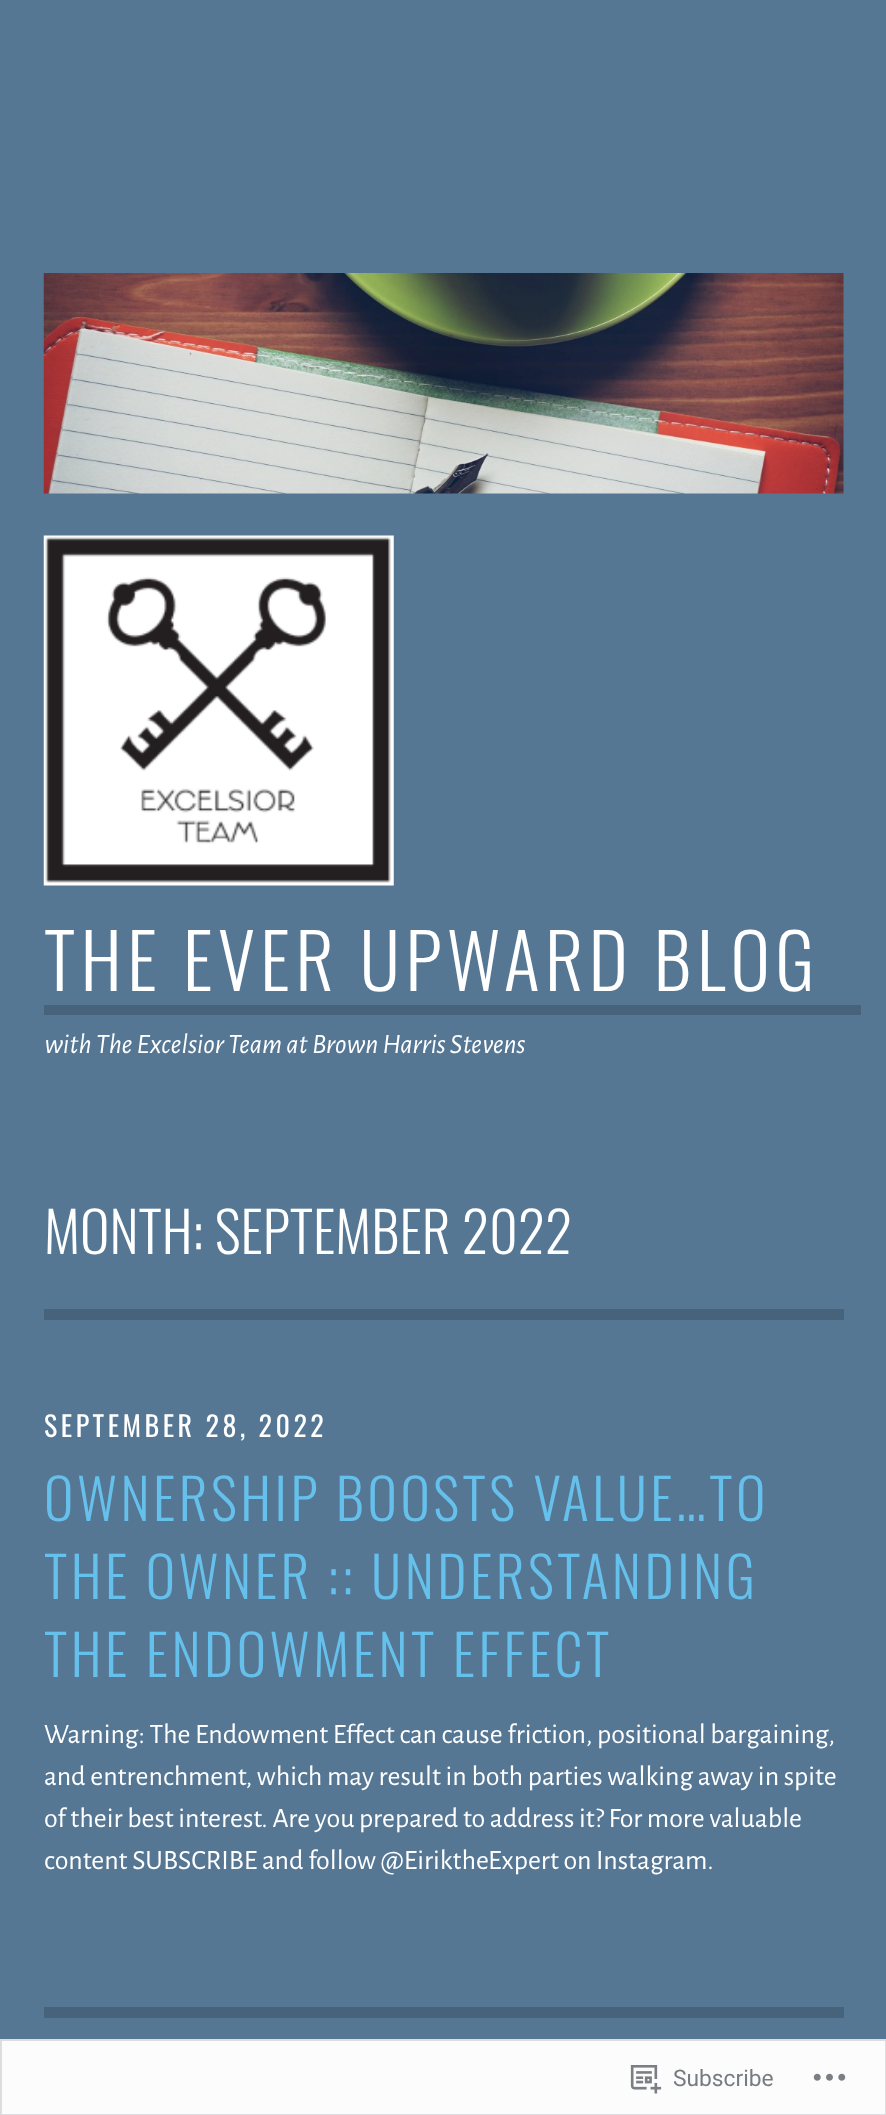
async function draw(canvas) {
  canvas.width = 886
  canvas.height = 2115
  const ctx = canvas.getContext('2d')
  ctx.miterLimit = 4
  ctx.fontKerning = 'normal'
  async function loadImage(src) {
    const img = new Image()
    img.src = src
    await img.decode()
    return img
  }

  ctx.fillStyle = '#557794'
  ctx.fillRect(0, 0, 886, 2115)
  ctx.fillStyle = '#fcfcfd'
  ctx.fillRect(0, 2039, 886, 76)
  ctx.drawImage(await loadImage('image0.png'), 43, 273, 801, 221)
  ctx.drawImage(await loadImage('image1.png'), 43, 535, 351, 351)
  ctx.letterSpacing = '5.25px'
  ctx.font = '300 75.25px Oswald'
  ctx.fillStyle = '#fff'
  ctx.fillText('THE EVER UPWARD BLOG', 44, 991)
  ctx.fillStyle = '#47637c'
  ctx.fillRect(44, 1005, 817, 10)
  ctx.letterSpacing = '0px'
  ctx.font = 'italic 28px Alegreya Sans'
  ctx.fillStyle = '#fff'
  ctx.fillText('with The Excelsior Team at Brown Harris Stevens', 44, 1053)
  ctx.font = '300 56px Oswald'
  ctx.fillText('MONTH: SEPTEMBER 2022', 44, 1254)
  ctx.fillStyle = '#47637c'
  ctx.fillRect(44, 1309, 800, 11)
  ctx.letterSpacing = '3.5px'
  ctx.font = '28px Oswald'
  ctx.fillStyle = '#fff'
  ctx.fillText('SEPTEMBER 28, 2022', 44, 1437)
  ctx.font = '300 56px Oswald'
  ctx.fillStyle = '#66c0ec'
  ctx.fillText('OWNERSHIP BOOSTS VALUE…TO', 44, 1521)
  ctx.fillText('THE OWNER :: UNDERSTANDING', 44, 1599)
  ctx.fillText('THE ENDOWMENT EFFECT', 44, 1677)
  ctx.letterSpacing = '0px'
  ctx.font = '28px Alegreya Sans'
  ctx.fillStyle = '#fff'
  ctx.fillText('Warning: The Endowment Effect can cause friction, positional bargaining,', 44, 1743)
  ctx.fillText('and entrenchment, which may result in both parties walking away in spite', 44, 1785)
  ctx.fillText('of their best interest. Are you prepared to address it? For more valuable', 44, 1827)
  ctx.fillText('content SUBSCRIBE and follow @EiriktheExpert on Instagram.', 44, 1869)
  ctx.fillStyle = '#47637c'
  ctx.fillRect(44, 2007, 800, 11)
  ctx.strokeStyle = '#dcdcdefa'
  ctx.lineWidth = 2
  ctx.strokeRect(1, 2040, 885, 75)
  ctx.drawImage(await loadImage('image2.png'), 630, 2065, 32, 29)
  ctx.font = '22.75px Roboto'
  ctx.fillStyle = '#777c82'
  ctx.fillText('Subscribe', 673, 2086)
  ctx.drawImage(await loadImage('image3.png'), 813, 2073, 33, 8)
}

draw(document.querySelector('canvas'))
